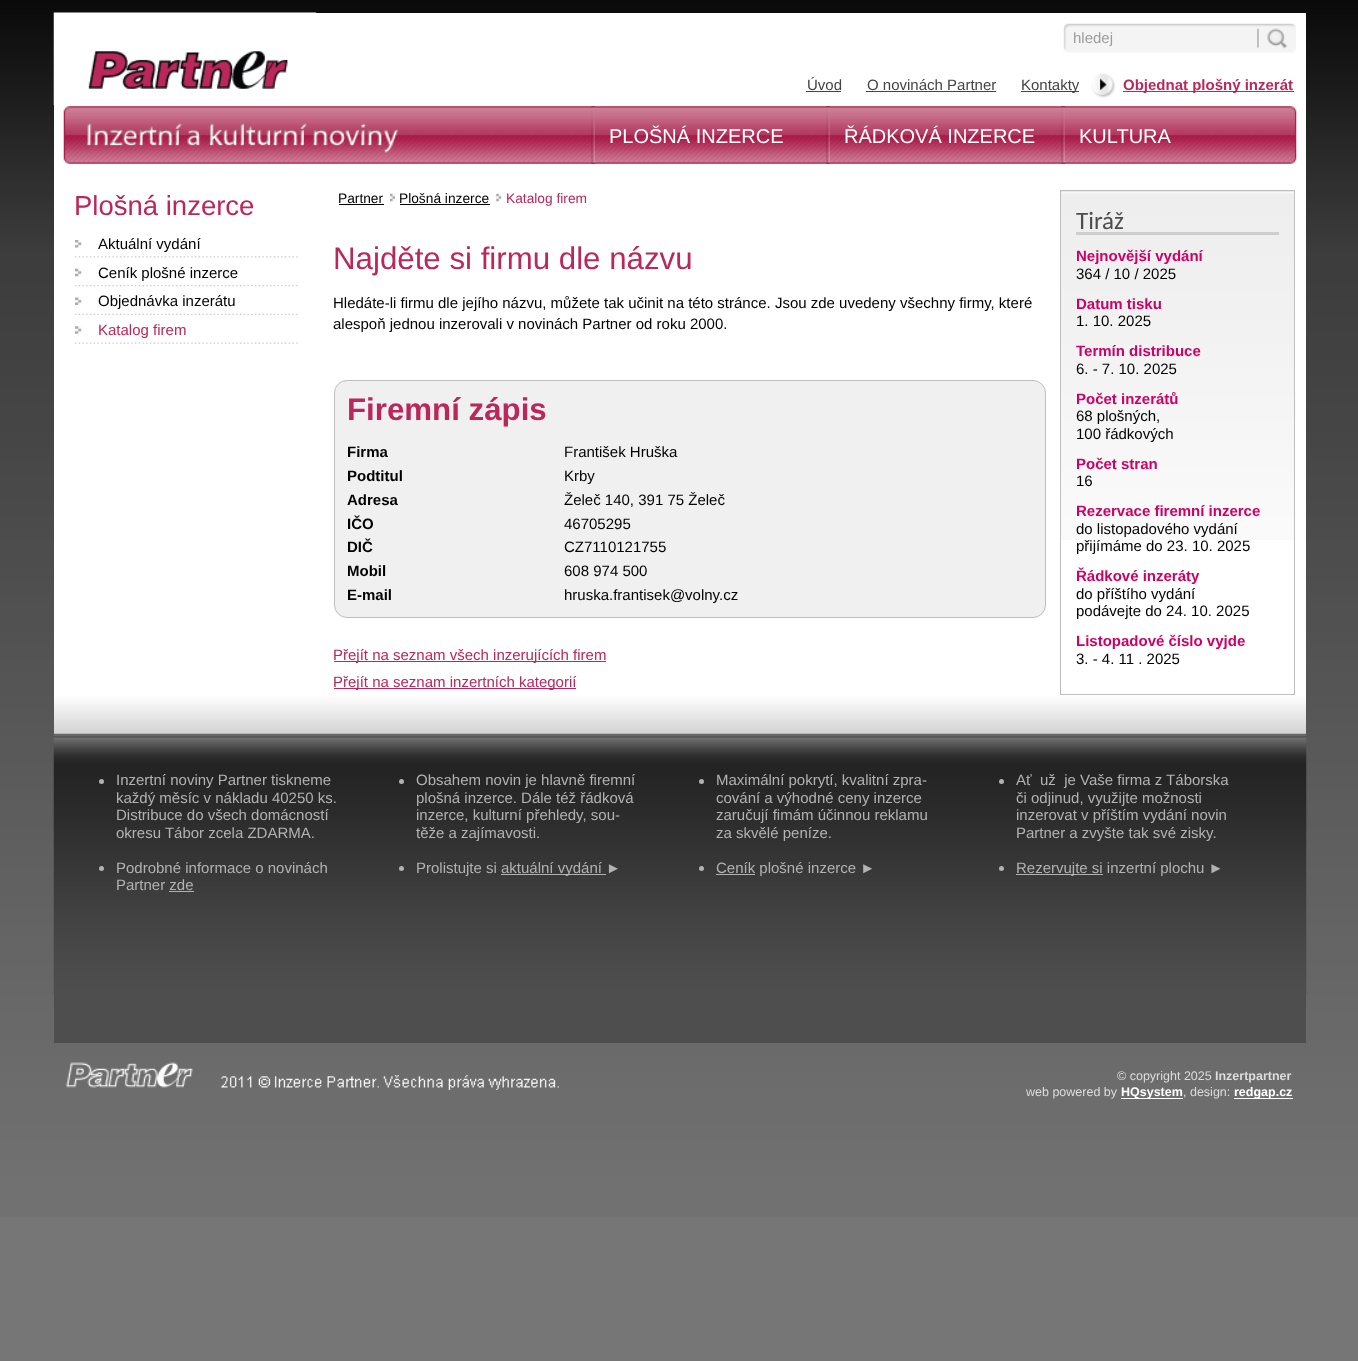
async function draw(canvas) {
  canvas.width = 1358
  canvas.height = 1361
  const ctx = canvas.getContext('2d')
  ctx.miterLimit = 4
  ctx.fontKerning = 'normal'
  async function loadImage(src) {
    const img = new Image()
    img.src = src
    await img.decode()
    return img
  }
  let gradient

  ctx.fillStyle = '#767676'
  ctx.fillRect(0, 0, 1358, 1361)
  ctx.drawImage(await loadImage('image0.png'), 0, 0, 1358, 1217)
  ctx.fillStyle = '#fff'
  ctx.fillRect(54, 13, 1252, 167)
  ctx.drawImage(await loadImage('image1.png'), 53, 12, 264, 93)
  ctx.drawImage(await loadImage('image2.png'), 1063, 23, 233, 30)
  ctx.font = '15px Liberation Sans'
  ctx.fillStyle = '#9d9d9d'
  ctx.fillText('hledej', 1073, 43)
  ctx.fillStyle = '#444'
  ctx.fillText('Úvod', 807, 90)
  ctx.fillRect(806, 91, 35, 1)
  ctx.fillText('O novinách Partner', 867, 90)
  ctx.fillRect(866, 91, 130, 1)
  ctx.fillRect(1021, 91, 58, 1)
  ctx.fillText('Kontakty', 1021, 90)
  ctx.drawImage(await loadImage('image3.png'), 1091, 73, 24, 25)
  ctx.fillStyle = '#ba275b'
  ctx.fillRect(1123, 91, 171, 1)
  ctx.font = 'bold 15px Liberation Sans'
  ctx.fillText('Objednat plošný inzerát', 1123, 90)
  ctx.drawImage(await loadImage('image4.png'), 63, 106, 1234, 58)
  ctx.drawImage(await loadImage('image5.png'), 591, 106, 4, 58)
  ctx.font = '20px Liberation Sans'
  ctx.fillStyle = '#fff'
  ctx.fillText('PLOŠNÁ INZERCE', 609, 143)
  ctx.drawImage(await loadImage('image5.png'), 826, 106, 4, 58)
  ctx.fillText('ŘÁDKOVÁ INZERCE', 844, 143)
  ctx.drawImage(await loadImage('image5.png'), 1061, 106, 4, 58)
  ctx.fillText('KULTURA', 1079, 143)
  gradient = ctx.createLinearGradient(680, 180, 680, 734)
  gradient.addColorStop(0.93, '#fff')
  gradient.addColorStop(1, '#d2d2d2')
  ctx.fillStyle = gradient
  ctx.fillRect(54, 180, 1252, 554)
  ctx.font = '27.5px Liberation Sans'
  ctx.fillStyle = '#ba275b'
  ctx.fillText('Plošná inzerce', 74, 215)
  ctx.drawImage(await loadImage('image6.png'), 75, 256, 223, 2)
  ctx.drawImage(await loadImage('image7.png'), 75, 240, 7, 8)
  ctx.font = '15px Liberation Sans'
  ctx.fillStyle = '#000001'
  ctx.fillText('Aktuální vydání', 98, 249)
  ctx.drawImage(await loadImage('image8.png'), 75, 285, 223, 2)
  ctx.drawImage(await loadImage('image9.png'), 75, 268, 7, 9)
  ctx.fillText('Ceník plošné inzerce', 98, 278)
  ctx.drawImage(await loadImage('image10.png'), 75, 313, 223, 2)
  ctx.drawImage(await loadImage('image11.png'), 75, 297, 7, 8)
  ctx.fillText('Objednávka inzerátu', 98, 306)
  ctx.drawImage(await loadImage('image12.png'), 75, 342, 223, 2)
  ctx.drawImage(await loadImage('image13.png'), 75, 326, 7, 8)
  ctx.fillStyle = '#ba275b'
  ctx.fillText('Katalog firem', 98, 335)
  ctx.font = '13.75px Liberation Sans'
  ctx.fillStyle = '#000001'
  ctx.fillText('Partner', 338, 203)
  ctx.fillStyle = '#000'
  ctx.fillRect(339, 204, 45, 1)
  ctx.drawImage(await loadImage('image14.png'), 390, 193, 5, 9)
  ctx.fillStyle = '#000001'
  ctx.fillText('Plošná inzerce', 399, 203)
  ctx.fillStyle = '#000'
  ctx.fillRect(400, 204, 90, 1)
  ctx.drawImage(await loadImage('image15.png'), 496, 193, 6, 9)
  ctx.fillStyle = '#ba275b'
  ctx.fillText('Katalog firem', 506, 203)
  ctx.font = '31.25px Liberation Sans'
  ctx.fillText('Najděte si firmu dle názvu', 333, 269)
  ctx.font = '15px Liberation Sans'
  ctx.fillStyle = '#000001'
  ctx.fillText('Hledáte-li firmu dle jejího názvu, můžete tak učinit na této stránce. Jsou zde uvedeny všechny firmy, které', 333, 308)
  ctx.fillText('alespoň jednou inzerovali v novinách Partner od roku 2000.', 333, 329)
  ctx.fillStyle = '#f0f0f0'
  ctx.beginPath()
  ctx.roundRect(334.5, 380.5, 711, 237, 12.5)
  ctx.fill()
  ctx.strokeStyle = '#bebebe'
  ctx.stroke()
  ctx.font = 'bold 31.25px Liberation Sans'
  ctx.fillStyle = '#ba275b'
  ctx.fillText('Firemní zápis', 347, 420)
  ctx.font = 'bold 15px Liberation Sans'
  ctx.fillStyle = '#000001'
  ctx.fillText('Firma', 347, 457)
  ctx.font = '15px Liberation Sans'
  ctx.fillText('František Hruška', 564, 457)
  ctx.font = 'bold 15px Liberation Sans'
  ctx.fillText('Podtitul', 347, 481)
  ctx.font = '15px Liberation Sans'
  ctx.fillText('Krby', 564, 481)
  ctx.font = 'bold 15px Liberation Sans'
  ctx.fillText('Adresa', 347, 505)
  ctx.font = '15px Liberation Sans'
  ctx.fillText('Želeč 140, 391 75 Želeč', 564, 505)
  ctx.font = 'bold 15px Liberation Sans'
  ctx.fillText('IČO', 347, 529)
  ctx.font = '15px Liberation Sans'
  ctx.fillText('46705295', 564, 529)
  ctx.font = 'bold 15px Liberation Sans'
  ctx.fillText('DIČ', 347, 552)
  ctx.font = '15px Liberation Sans'
  ctx.fillText('CZ7110121755', 564, 552)
  ctx.font = 'bold 15px Liberation Sans'
  ctx.fillText('Mobil', 347, 576)
  ctx.font = '15px Liberation Sans'
  ctx.fillText('608 974 500', 564, 576)
  ctx.font = 'bold 15px Liberation Sans'
  ctx.fillText('E-mail', 347, 600)
  ctx.font = '15px Liberation Sans'
  ctx.fillText('hruska.frantisek@volny.cz', 564, 600)
  ctx.fillStyle = '#ba275b'
  ctx.fillRect(334, 661, 272, 1)
  ctx.fillText('Přejít na seznam všech inzerujících firem', 333, 660)
  ctx.fillRect(334, 688, 242, 1)
  ctx.fillText('Přejít na seznam inzertních kategorií', 333, 687)
  ctx.drawImage(await loadImage('image16.png'), 1061, 190, 233, 350)
  ctx.fillStyle = '#bebebe'
  ctx.fillRect(1294, 190, 1, 505)
  ctx.fillRect(1060, 694, 235, 1)
  ctx.fillRect(1060, 190, 1, 505)
  ctx.fillStyle = '#cecece'
  ctx.fillRect(1076, 232, 203, 3)
  ctx.font = '25px Carlito'
  ctx.fillStyle = '#4d4d4d'
  ctx.fillText('Tiráž', 1076, 229)
  ctx.font = 'bold 15px Liberation Sans'
  ctx.fillStyle = '#c06'
  ctx.fillText('Nejnovější vydání', 1076, 261)
  ctx.font = '15px Liberation Sans'
  ctx.fillStyle = '#000001'
  ctx.fillText('364 / 10 / 2025', 1076, 279)
  ctx.font = 'bold 15px Liberation Sans'
  ctx.fillStyle = '#c06'
  ctx.fillText('Datum tisku', 1076, 309)
  ctx.font = '15px Liberation Sans'
  ctx.fillStyle = '#000001'
  ctx.fillText('1. 10. 2025', 1076, 326)
  ctx.font = 'bold 15px Liberation Sans'
  ctx.fillStyle = '#c06'
  ctx.fillText('Termín distribuce', 1076, 356)
  ctx.font = '15px Liberation Sans'
  ctx.fillStyle = '#000001'
  ctx.fillText('6. - 7. 10. 2025', 1076, 374)
  ctx.font = 'bold 15px Liberation Sans'
  ctx.fillStyle = '#c06'
  ctx.fillText('Počet inzerátů', 1076, 404)
  ctx.font = '15px Liberation Sans'
  ctx.fillStyle = '#000001'
  ctx.fillText('68 plošných,', 1076, 421)
  ctx.fillText('100 řádkových', 1076, 439)
  ctx.font = 'bold 15px Liberation Sans'
  ctx.fillStyle = '#c06'
  ctx.fillText('Počet stran', 1076, 469)
  ctx.font = '15px Liberation Sans'
  ctx.fillStyle = '#000001'
  ctx.fillText('16', 1076, 486)
  ctx.font = 'bold 15px Liberation Sans'
  ctx.fillStyle = '#c06'
  ctx.fillText('Rezervace firemní inzerce', 1076, 516)
  ctx.font = '15px Liberation Sans'
  ctx.fillStyle = '#000001'
  ctx.fillText('do listopadového vydání', 1076, 534)
  ctx.fillText('přijímáme do 23. 10. 2025', 1076, 551)
  ctx.font = 'bold 15px Liberation Sans'
  ctx.fillStyle = '#c06'
  ctx.fillText('Řádkové inzeráty', 1076, 581)
  ctx.font = '15px Liberation Sans'
  ctx.fillStyle = '#000001'
  ctx.fillText('do příštího vydání', 1076, 599)
  ctx.fillText('podávejte do 24. 10. 2025', 1076, 616)
  ctx.font = 'bold 15px Liberation Sans'
  ctx.fillStyle = '#c06'
  ctx.fillText('Listopadové číslo vyjde', 1076, 646)
  ctx.font = '15px Liberation Sans'
  ctx.fillStyle = '#000001'
  ctx.fillText('3. - 4. 11 . 2025', 1076, 664)
  ctx.fillStyle = '#4e4e4e'
  ctx.fillRect(54, 995, 1252, 48)
  ctx.drawImage(await loadImage('image17.png'), 53, 733, 1254, 262)
  ctx.fillStyle = '#b2b2b2'
  ctx.beginPath()
  ctx.arc(101.5, 781.5, 2.5, 0, 2 * Math.PI)
  ctx.fill()
  ctx.fillText('Inzertní noviny Partner tiskneme', 116, 785)
  ctx.fillText('každý měsíc v nákladu 40250 ks.', 116, 803)
  ctx.fillText('Distribuce do všech domácností', 116, 820)
  ctx.fillText('okresu Tábor zcela ZDARMA.', 116, 838)
  ctx.beginPath()
  ctx.arc(101.5, 868.5, 2.5, 0, 2 * Math.PI)
  ctx.fill()
  ctx.fillText('Podrobné informace o novinách', 116, 873)
  ctx.fillText('Partner zde', 116, 890)
  ctx.fillRect(169, 891, 25, 1)
  ctx.beginPath()
  ctx.arc(401.5, 781.5, 2.5, 0, 2 * Math.PI)
  ctx.fill()
  ctx.fillText('Obsahem novin je hlavně firemní', 416, 785)
  ctx.fillText('plošná inzerce. Dále též řádková', 416, 803)
  ctx.fillText('inzerce, kulturní přehledy, sou-', 416, 820)
  ctx.fillText('těže a zajímavosti.', 416, 838)
  ctx.beginPath()
  ctx.arc(401.5, 868.5, 2.5, 0, 2 * Math.PI)
  ctx.fill()
  ctx.fillText('Prolistujte si', 416, 873)
  ctx.fillRect(501, 874, 105, 1)
  ctx.fillText('aktuální vydání ►', 501, 873)
  ctx.beginPath()
  ctx.arc(701.5, 781.5, 2.5, 0, 2 * Math.PI)
  ctx.fill()
  ctx.fillText('Maximální pokrytí, kvalitní zpra-', 716, 785)
  ctx.fillText('cování a výhodné ceny inzerce', 716, 803)
  ctx.fillText('zaručují fimám účinnou reklamu', 716, 820)
  ctx.fillText('za skvělé peníze.', 716, 838)
  ctx.beginPath()
  ctx.arc(701.5, 868.5, 2.5, 0, 2 * Math.PI)
  ctx.fill()
  ctx.fillRect(716, 874, 39, 1)
  ctx.fillText('Ceník plošné inzerce ►', 716, 873)
  ctx.beginPath()
  ctx.arc(1001.5, 781.5, 2.5, 0, 2 * Math.PI)
  ctx.fill()
  ctx.fillText('Ať  už  je Vaše firma z Táborska', 1016, 785)
  ctx.fillText('či odjinud, využijte možnosti', 1016, 803)
  ctx.fillText('inzerovat v příštím vydání novin', 1016, 820)
  ctx.fillText('Partner a zvyšte tak své zisky.', 1016, 838)
  ctx.beginPath()
  ctx.arc(1001.5, 868.5, 2.5, 0, 2 * Math.PI)
  ctx.fill()
  ctx.fillRect(1016, 874, 87, 1)
  ctx.fillText('Rezervujte si inzertní plochu ►', 1016, 873)
  ctx.drawImage(await loadImage('image18.png'), 66, 1062, 493, 28)
  ctx.font = '12.5px Liberation Sans'
  ctx.fillStyle = '#ddd'
  ctx.fillText('© copyright 2025', 1117, 1080)
  ctx.font = 'bold 12.5px Liberation Sans'
  ctx.fillText('Inzertpartner', 1215, 1080)
  ctx.font = '12.5px Liberation Sans'
  ctx.fillText('web powered by', 1026, 1096)
  ctx.fillStyle = '#fff'
  ctx.fillRect(1121, 1098, 62, 1)
  ctx.font = 'bold 12.5px Liberation Sans'
  ctx.fillText('HQsystem', 1121, 1096)
  ctx.font = '12.5px Liberation Sans'
  ctx.fillStyle = '#ddd'
  ctx.fillText(', design:', 1183, 1096)
  ctx.fillStyle = '#fff'
  ctx.fillRect(1234, 1098, 59, 1)
  ctx.font = 'bold 12.5px Liberation Sans'
  ctx.fillText('redgap.cz', 1234, 1096)
}

draw(document.querySelector('canvas'))
